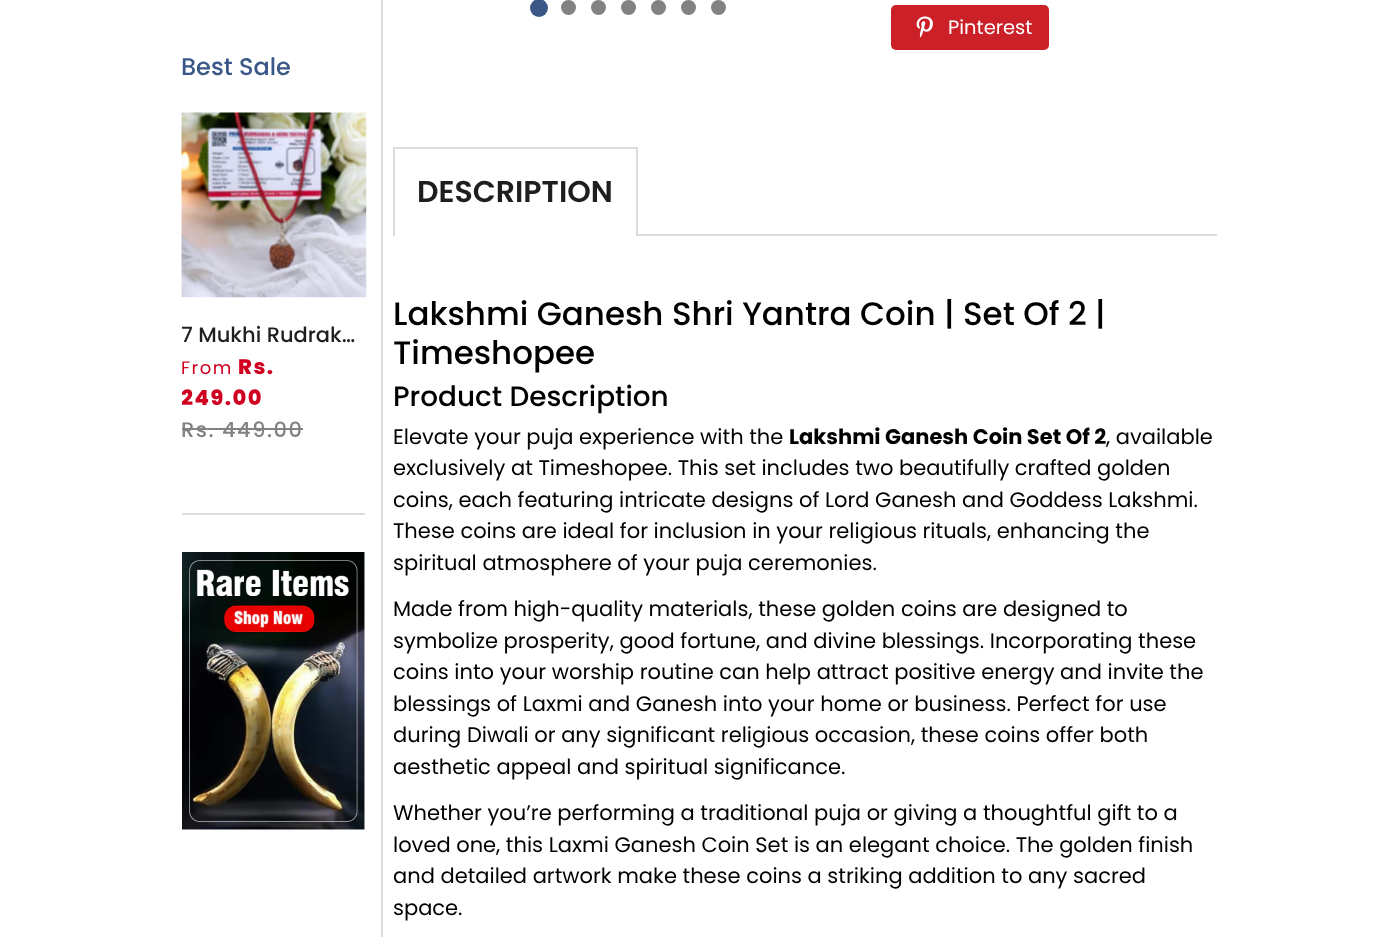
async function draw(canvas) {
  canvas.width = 1397
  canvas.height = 937
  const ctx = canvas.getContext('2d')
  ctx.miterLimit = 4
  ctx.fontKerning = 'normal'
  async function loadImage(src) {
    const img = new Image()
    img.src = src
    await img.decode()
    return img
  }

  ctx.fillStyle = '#fff'
  ctx.fillRect(0, 0, 1397, 937)
  ctx.fillStyle = '#dcdcdc'
  ctx.fillRect(381, 0, 2, 937)
  ctx.fillRect(182, 513, 183, 2)
  ctx.font = '500 24px Poppins'
  ctx.fillStyle = '#3a5887'
  ctx.fillText('Best Sale', 181, 75)
  ctx.drawImage(await loadImage('image0.png'), 181, 112, 186, 186)
  ctx.save()
  ctx.beginPath()
  ctx.rect(182, 320, 184, 31)
  ctx.clip()
  ctx.font = '500 21px Poppins'
  ctx.fillStyle = '#1e1e1e'
  ctx.fillText('7 Mukhi Rudrak…', 181, 342)
  ctx.restore()
  ctx.letterSpacing = '1.5px'
  ctx.font = '18px Poppins'
  ctx.fillStyle = '#d00021'
  ctx.fillText('From', 181, 374)
  ctx.font = '800 21px Poppins'
  ctx.fillText('Rs.', 238, 374)
  ctx.save()
  ctx.beginPath()
  ctx.rect(182, 305, 184, 148)
  ctx.clip()
  ctx.fillText('249.00', 181, 405)
  ctx.restore()
  ctx.font = '500 21px Poppins'
  ctx.fillStyle = '#828282'
  ctx.fillText('Rs. 449.00', 181, 437)
  ctx.fillRect(182, 428, 121, 2)
  ctx.drawImage(await loadImage('image1.png'), 182, 552, 183, 278)
  ctx.fillStyle = '#3a5887'
  ctx.beginPath()
  ctx.arc(539, 8, 9, 0, 2 * Math.PI)
  ctx.fill()
  ctx.fillStyle = '#828282'
  ctx.beginPath()
  ctx.arc(568.5, 7.5, 7.5, 0, 2 * Math.PI)
  ctx.fill()
  ctx.beginPath()
  ctx.arc(598.5, 7.5, 7.5, 0, 2 * Math.PI)
  ctx.fill()
  ctx.beginPath()
  ctx.arc(628.5, 7.5, 7.5, 0, 2 * Math.PI)
  ctx.fill()
  ctx.beginPath()
  ctx.arc(658.5, 7.5, 7.5, 0, 2 * Math.PI)
  ctx.fill()
  ctx.beginPath()
  ctx.arc(688.5, 7.5, 7.5, 0, 2 * Math.PI)
  ctx.fill()
  ctx.beginPath()
  ctx.arc(718.5, 7.5, 7.5, 0, 2 * Math.PI)
  ctx.fill()
  ctx.fillStyle = '#cb2027'
  ctx.beginPath()
  ctx.roundRect(891, 5, 158, 45, 5)
  ctx.fill()
  ctx.drawImage(await loadImage('image2.png'), 916, 16, 17, 22)
  ctx.letterSpacing = '0px'
  ctx.font = '19.5px Poppins'
  ctx.fillStyle = '#fff'
  ctx.fillText('Pinterest', 948, 34)
  ctx.fillStyle = '#dcdcdc'
  ctx.fillRect(393, 147, 245, 2)
  ctx.fillRect(636, 147, 2, 89)
  ctx.fillRect(393, 147, 2, 89)
  ctx.font = '600 30px Poppins'
  ctx.fillStyle = '#1e1e1e'
  ctx.fillText('DESCRIPTION', 417, 202)
  ctx.fillStyle = '#dcdcdc'
  ctx.fillRect(393, 234, 824, 2)
  ctx.fillStyle = '#fff'
  ctx.fillRect(395, 234, 241, 2)
  ctx.font = '500 32.5px Poppins'
  ctx.fillStyle = '#000'
  ctx.fillText('Lakshmi Ganesh Shri Yantra Coin | Set Of 2 |', 393, 325)
  ctx.fillText('Timeshopee', 393, 364)
  ctx.font = '500 27.9px Poppins'
  ctx.fillText('Product Description', 393, 406)
  ctx.font = '21px Poppins'
  ctx.fillText('Elevate your puja experience with the', 393, 444)
  ctx.font = 'bold 21px Poppins'
  ctx.fillText('Lakshmi Ganesh Coin Set Of 2', 789, 444)
  ctx.font = '21px Poppins'
  ctx.fillText(', available', 1106, 444)
  ctx.fillText('exclusively at Timeshopee. This set includes two beautifully crafted golden', 393, 475)
  ctx.fillText('coins, each featuring intricate designs of Lord Ganesh and Goddess Lakshmi.', 393, 507)
  ctx.fillText('These coins are ideal for inclusion in your religious rituals, enhancing the', 393, 538)
  ctx.fillText('spiritual atmosphere of your puja ceremonies.', 393, 570)
  ctx.fillText('Made from high-quality materials, these golden coins are designed to', 393, 616)
  ctx.fillText('symbolize prosperity, good fortune, and divine blessings. Incorporating these', 393, 648)
  ctx.fillText('coins into your worship routine can help attract positive energy and invite the', 393, 679)
  ctx.fillText('blessings of Laxmi and Ganesh into your home or business. Perfect for use', 393, 711)
  ctx.fillText('during Diwali or any significant religious occasion, these coins offer both', 393, 742)
  ctx.fillText('aesthetic appeal and spiritual significance.', 393, 774)
  ctx.fillText('Whether you’re performing a traditional puja or giving a thoughtful gift to a', 393, 820)
  ctx.fillText('loved one, this Laxmi Ganesh Coin Set is an elegant choice. The golden finish', 393, 852)
  ctx.fillText('and detailed artwork make these coins a striking addition to any sacred', 393, 883)
  ctx.fillText('space.', 393, 915)
}

draw(document.querySelector('canvas'))
